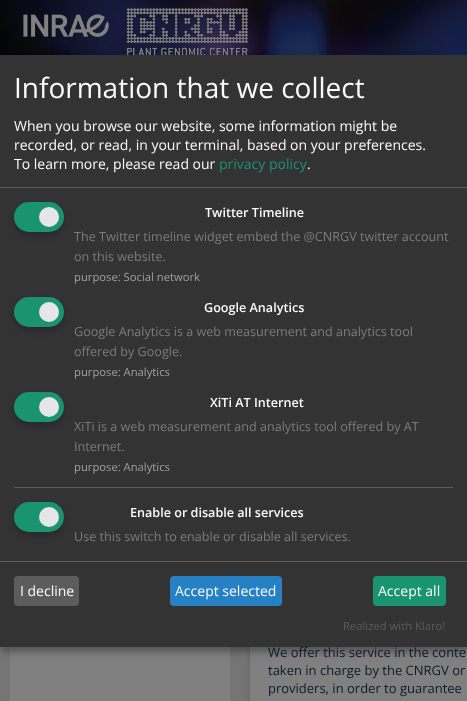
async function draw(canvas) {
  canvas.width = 467
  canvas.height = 701
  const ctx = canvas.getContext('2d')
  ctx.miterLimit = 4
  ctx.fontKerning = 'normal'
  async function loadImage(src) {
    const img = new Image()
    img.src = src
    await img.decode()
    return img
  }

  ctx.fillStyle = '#757575'
  ctx.fillRect(0, 0, 467, 701)
  ctx.drawImage(await loadImage('image0.png'), 0, 0, 467, 55)
  ctx.drawImage(await loadImage('image1.png'), 23, 8, 225, 47)
  ctx.fillStyle = '#808080'
  ctx.fillRect(10, 647, 220, 54)
  ctx.fillStyle = '#00000029'
  ctx.filter = 'blur(3px)'
  ctx.beginPath()
  ctx.roundRect(250, 309, 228, 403, 2)
  ctx.fill()
  ctx.filter = 'none'
  ctx.fillStyle = '#808080'
  ctx.fillRect(250, 647, 217, 54)
  ctx.fillStyle = '#00000030'
  ctx.filter = 'blur(5px)'
  ctx.beginPath()
  ctx.rect(5, 60, 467, 592)
  ctx.fill()
  ctx.filter = 'none'
  ctx.fillStyle = '#00000033'
  ctx.filter = 'blur(3px)'
  ctx.beginPath()
  ctx.rect(0, 59, 467, 592)
  ctx.fill()
  ctx.filter = 'none'
  ctx.fillStyle = '#333'
  ctx.fillRect(0, 55, 467, 592)
  ctx.fillStyle = '#5c5c5c'
  ctx.fillRect(0, 187, 467, 1)
  ctx.font = '28px Open Sans'
  ctx.fillStyle = '#fafafa'
  ctx.fillText('Information that we collect', 14, 98)
  ctx.font = '14px Open Sans'
  ctx.fillText('When you browse our website, some information might be', 14, 131)
  ctx.fillText('recorded, or read, in your terminal, based on your preferences.', 14, 150)
  ctx.fillText('To learn more, please read our', 14, 169)
  ctx.fillStyle = '#1a936f'
  ctx.fillText('privacy policy', 219, 169)
  ctx.fillStyle = '#fafafa'
  ctx.fillText('.', 307, 169)
  ctx.fillStyle = '#00000033'
  ctx.filter = 'blur(3px)'
  ctx.beginPath()
  ctx.roundRect(14, 206, 50, 30, 15)
  ctx.fill()
  ctx.filter = 'none'
  ctx.fillStyle = '#1a936f'
  ctx.beginPath()
  ctx.roundRect(14, 202, 50, 30, 15)
  ctx.fill()
  ctx.fillStyle = '#e6e6e6'
  ctx.beginPath()
  ctx.arc(49, 217, 10, 0, 2 * Math.PI)
  ctx.fill()
  ctx.font = '600 12.6px Open Sans'
  ctx.fillStyle = '#fafafa'
  ctx.fillText('Twitter Timeline', 205, 217)
  ctx.font = '12.6px Open Sans'
  ctx.fillStyle = '#7c7c7c'
  ctx.fillText('The Twitter timeline widget embed the @CNRGV twitter account', 74, 241)
  ctx.fillText('on this website.', 74, 261)
  ctx.font = '11.25px Open Sans'
  ctx.fillStyle = '#a0a0a0'
  ctx.fillText('purpose: Social network', 74, 281)
  ctx.fillStyle = '#00000033'
  ctx.filter = 'blur(3px)'
  ctx.beginPath()
  ctx.roundRect(14, 301, 50, 30, 15)
  ctx.fill()
  ctx.filter = 'none'
  ctx.fillStyle = '#1a936f'
  ctx.beginPath()
  ctx.roundRect(14, 297, 50, 30, 15)
  ctx.fill()
  ctx.fillStyle = '#e6e6e6'
  ctx.beginPath()
  ctx.arc(49, 312, 10, 0, 2 * Math.PI)
  ctx.fill()
  ctx.font = '600 12.6px Open Sans'
  ctx.fillStyle = '#fafafa'
  ctx.fillText('Google Analytics', 204, 312)
  ctx.font = '12.6px Open Sans'
  ctx.fillStyle = '#7c7c7c'
  ctx.fillText('Google Analytics is a web measurement and analytics tool', 74, 336)
  ctx.fillText('offered by Google.', 74, 356)
  ctx.font = '11.25px Open Sans'
  ctx.fillStyle = '#a0a0a0'
  ctx.fillText('purpose: Analytics', 74, 376)
  ctx.fillStyle = '#00000033'
  ctx.filter = 'blur(3px)'
  ctx.beginPath()
  ctx.roundRect(14, 396, 50, 30, 15)
  ctx.fill()
  ctx.filter = 'none'
  ctx.fillStyle = '#1a936f'
  ctx.beginPath()
  ctx.roundRect(14, 392, 50, 30, 15)
  ctx.fill()
  ctx.fillStyle = '#e6e6e6'
  ctx.beginPath()
  ctx.arc(49, 407, 10, 0, 2 * Math.PI)
  ctx.fill()
  ctx.font = '600 12.6px Open Sans'
  ctx.fillStyle = '#fafafa'
  ctx.fillText('XiTi AT Internet', 210, 407)
  ctx.font = '12.6px Open Sans'
  ctx.fillStyle = '#7c7c7c'
  ctx.fillText('XiTi is a web measurement and analytics tool offered by AT', 74, 431)
  ctx.fillText('Internet.', 74, 451)
  ctx.font = '11.25px Open Sans'
  ctx.fillStyle = '#a0a0a0'
  ctx.fillText('purpose: Analytics', 74, 471)
  ctx.fillStyle = '#5c5c5c'
  ctx.fillRect(14, 487, 439, 1)
  ctx.fillStyle = '#00000033'
  ctx.filter = 'blur(3px)'
  ctx.beginPath()
  ctx.roundRect(14, 506, 50, 30, 15)
  ctx.fill()
  ctx.filter = 'none'
  ctx.fillStyle = '#1a936f'
  ctx.beginPath()
  ctx.roundRect(14, 502, 50, 30, 15)
  ctx.fill()
  ctx.fillStyle = '#e6e6e6'
  ctx.beginPath()
  ctx.arc(49, 517, 10, 0, 2 * Math.PI)
  ctx.fill()
  ctx.font = '600 12.6px Open Sans'
  ctx.fillStyle = '#fafafa'
  ctx.fillText('Enable or disable all services', 130, 517)
  ctx.font = '12.6px Open Sans'
  ctx.fillStyle = '#7c7c7c'
  ctx.fillText('Use this switch to enable or disable all services.', 74, 541)
  ctx.fillStyle = '#5c5c5c'
  ctx.fillRect(0, 561, 467, 1)
  ctx.beginPath()
  ctx.roundRect(14, 576, 65, 30, 4)
  ctx.fill()
  ctx.font = '14px Open Sans'
  ctx.fillStyle = '#fafafa'
  ctx.fillText('I decline', 20, 596)
  ctx.fillStyle = '#2581c4'
  ctx.beginPath()
  ctx.roundRect(170, 576, 112, 30, 4)
  ctx.fill()
  ctx.fillStyle = '#fafafa'
  ctx.fillText('Accept selected', 175, 596)
  ctx.fillStyle = '#1a936f'
  ctx.beginPath()
  ctx.roundRect(373, 576, 73, 30, 4)
  ctx.fill()
  ctx.fillStyle = '#fafafa'
  ctx.fillText('Accept all', 378, 596)
  ctx.font = '11.25px Open Sans'
  ctx.fillStyle = '#5c5c5c'
  ctx.fillText('Realized with Klaro!', 343, 630)
  ctx.font = '13px Open Sans'
  ctx.fillStyle = '#0a1a2b'
  ctx.fillText('We offer this service in the conte', 268, 657)
  ctx.fillText('taken in charge by the CNRGV or', 268, 675)
  ctx.fillText('providers, in order to guarantee', 268, 693)
}

draw(document.querySelector('canvas'))
